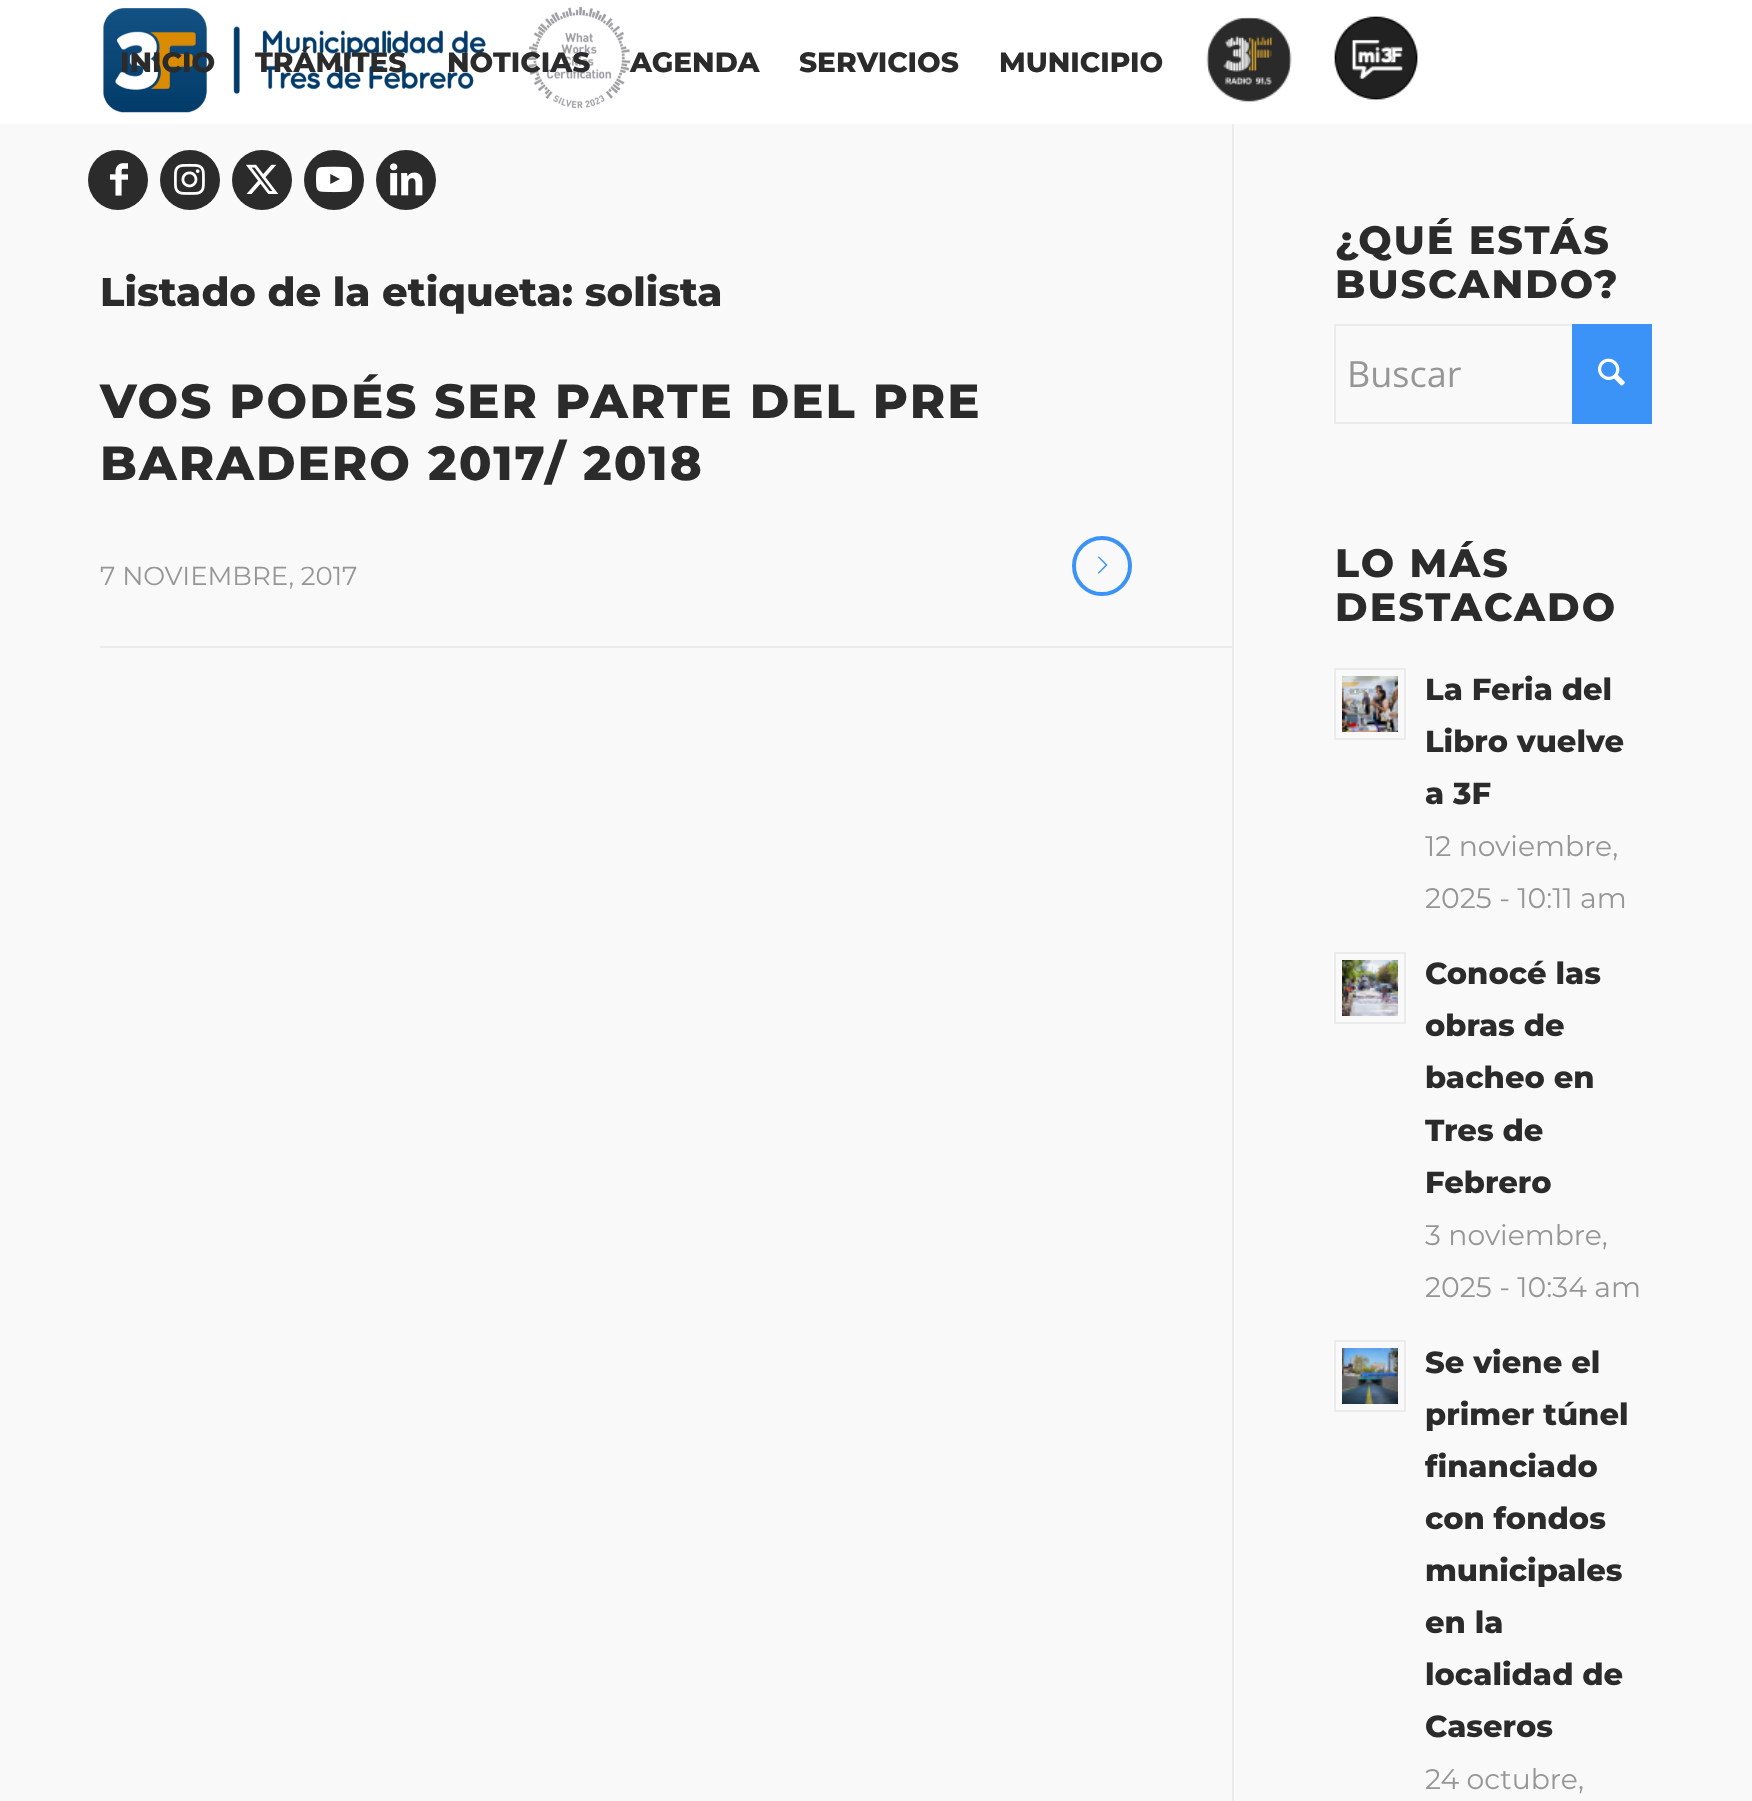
async function draw(canvas) {
  canvas.width = 1752
  canvas.height = 1801
  const ctx = canvas.getContext('2d')
  ctx.miterLimit = 4
  ctx.fontKerning = 'normal'
  async function loadImage(src) {
    const img = new Image()
    img.src = src
    await img.decode()
    return img
  }

  ctx.fillStyle = '#f9f9f9'
  ctx.fillRect(0, 0, 1752, 1801)
  ctx.fillStyle = '#ebebeb'
  ctx.fillRect(1232, 120, 2, 1681)
  ctx.fillStyle = '#fff'
  ctx.fillRect(0, 0, 1752, 124)
  ctx.drawImage(await loadImage('image0.png'), 103, 6, 528, 107)
  ctx.font = '800 28px Montserrat'
  ctx.fillStyle = '#2c2b2b'
  ctx.fillText('INICIO', 120, 72)
  ctx.fillText('TRÁMITES', 255, 72)
  ctx.fillText('NOTICIAS', 447, 72)
  ctx.fillText('AGENDA', 630, 72)
  ctx.fillText('SERVICIOS', 799, 72)
  ctx.fillText('MUNICIPIO', 999, 72)
  ctx.drawImage(await loadImage('image1.png'), 1206, 17, 86, 85)
  ctx.drawImage(await loadImage('image2.png'), 1334, 16, 84, 84)
  ctx.beginPath()
  ctx.arc(118, 180, 30, 0, 2 * Math.PI)
  ctx.fill()
  ctx.drawImage(await loadImage('image3.png'), 110, 163, 18, 33)
  ctx.beginPath()
  ctx.arc(190, 180, 30, 0, 2 * Math.PI)
  ctx.fill()
  ctx.drawImage(await loadImage('image4.png'), 174, 163, 31, 32)
  ctx.beginPath()
  ctx.arc(262, 180, 30, 0, 2 * Math.PI)
  ctx.fill()
  ctx.drawImage(await loadImage('image5.png'), 246, 164, 33, 30)
  ctx.beginPath()
  ctx.arc(334, 180, 30, 0, 2 * Math.PI)
  ctx.fill()
  ctx.drawImage(await loadImage('image6.png'), 316, 166, 36, 27)
  ctx.fillStyle = '#2b2b2b'
  ctx.beginPath()
  ctx.arc(406, 180, 30, 0, 2 * Math.PI)
  ctx.fill()
  ctx.drawImage(await loadImage('image7.png'), 390, 163, 33, 33)
  ctx.font = '800 40px Montserrat'
  ctx.fillStyle = '#2c2b2b'
  ctx.fillText('Listado de la etiqueta: solista', 100, 306)
  ctx.fillStyle = '#ebebeb'
  ctx.fillRect(100, 646, 1132, 2)
  ctx.letterSpacing = '2px'
  ctx.font = '800 48px Montserrat'
  ctx.fillStyle = '#2c2b2b'
  ctx.fillText('VOS PODÉS SER PARTE DEL PRE', 100, 418)
  ctx.fillText('BARADERO 2017/ 2018', 100, 480)
  ctx.letterSpacing = '0px'
  ctx.font = '26px Montserrat'
  ctx.fillStyle = '#969696'
  ctx.fillText('7 NOVIEMBRE, 2017', 100, 585)
  ctx.beginPath()
  ctx.arc(1102, 566, 28, 0, 2 * Math.PI)
  ctx.strokeStyle = '#3b93f7'
  ctx.lineWidth = 4
  ctx.stroke()
  ctx.drawImage(await loadImage('image8.png'), 1098, 556, 10, 18)
  ctx.letterSpacing = '2px'
  ctx.font = '800 39.5px Montserrat'
  ctx.fillStyle = '#2c2b2b'
  ctx.fillText('¿QUÉ ESTÁS', 1335, 254)
  ctx.fillText('BUSCANDO?', 1335, 298)
  ctx.strokeStyle = '#ebebeb'
  ctx.lineWidth = 2
  ctx.strokeRect(1335, 325, 316, 98)
  ctx.letterSpacing = '0px'
  ctx.font = '36px Open Sans'
  ctx.fillStyle = '#969696'
  ctx.fillText('Buscar', 1347, 387)
  ctx.fillStyle = '#3b93f7'
  ctx.fillRect(1572, 324, 80, 100)
  ctx.drawImage(await loadImage('image9.png'), 1598, 358, 27, 28)
  ctx.letterSpacing = '2px'
  ctx.font = '800 39.5px Montserrat'
  ctx.fillStyle = '#2c2b2b'
  ctx.fillText('LO MÁS', 1335, 577)
  ctx.fillText('DESTACADO', 1335, 621)
  ctx.strokeRect(1335, 669, 70, 70)
  ctx.drawImage(await loadImage('image10.png'), 1342, 676, 56, 56)
  ctx.letterSpacing = '0px'
  ctx.font = '800 30.5px Montserrat'
  ctx.fillText('La Feria del', 1425, 700)
  ctx.fillText('Libro vuelve', 1425, 752)
  ctx.fillText('a 3F', 1425, 804)
  ctx.font = '28.25px Montserrat'
  ctx.fillStyle = '#969696'
  ctx.fillText('12 noviembre,', 1425, 856)
  ctx.fillText('2025 - 10:11 am', 1425, 908)
  ctx.strokeRect(1335, 953, 70, 70)
  ctx.drawImage(await loadImage('image11.png'), 1342, 960, 56, 56)
  ctx.font = '800 30.5px Montserrat'
  ctx.fillStyle = '#2c2b2b'
  ctx.fillText('Conocé las', 1425, 984)
  ctx.fillText('obras de', 1425, 1036)
  ctx.fillText('bacheo en', 1425, 1088)
  ctx.fillText('Tres de', 1425, 1141)
  ctx.fillText('Febrero', 1425, 1193)
  ctx.font = '28.25px Montserrat'
  ctx.fillStyle = '#969696'
  ctx.fillText('3 noviembre,', 1425, 1245)
  ctx.fillText('2025 - 10:34 am', 1425, 1297)
  ctx.strokeRect(1335, 1341, 70, 70)
  ctx.drawImage(await loadImage('image12.png'), 1342, 1348, 56, 56)
  ctx.font = '800 30.5px Montserrat'
  ctx.fillStyle = '#2c2b2b'
  ctx.fillText('Se viene el', 1425, 1373)
  ctx.fillText('primer túnel', 1425, 1425)
  ctx.fillText('financiado', 1425, 1477)
  ctx.fillText('con fondos', 1425, 1529)
  ctx.fillText('municipales', 1425, 1581)
  ctx.fillText('en la', 1425, 1633)
  ctx.fillText('localidad de', 1425, 1685)
  ctx.fillText('Caseros', 1425, 1737)
  ctx.font = '28.25px Montserrat'
  ctx.fillStyle = '#969696'
  ctx.fillText('24 octubre,', 1425, 1789)
}

draw(document.querySelector('canvas'))
